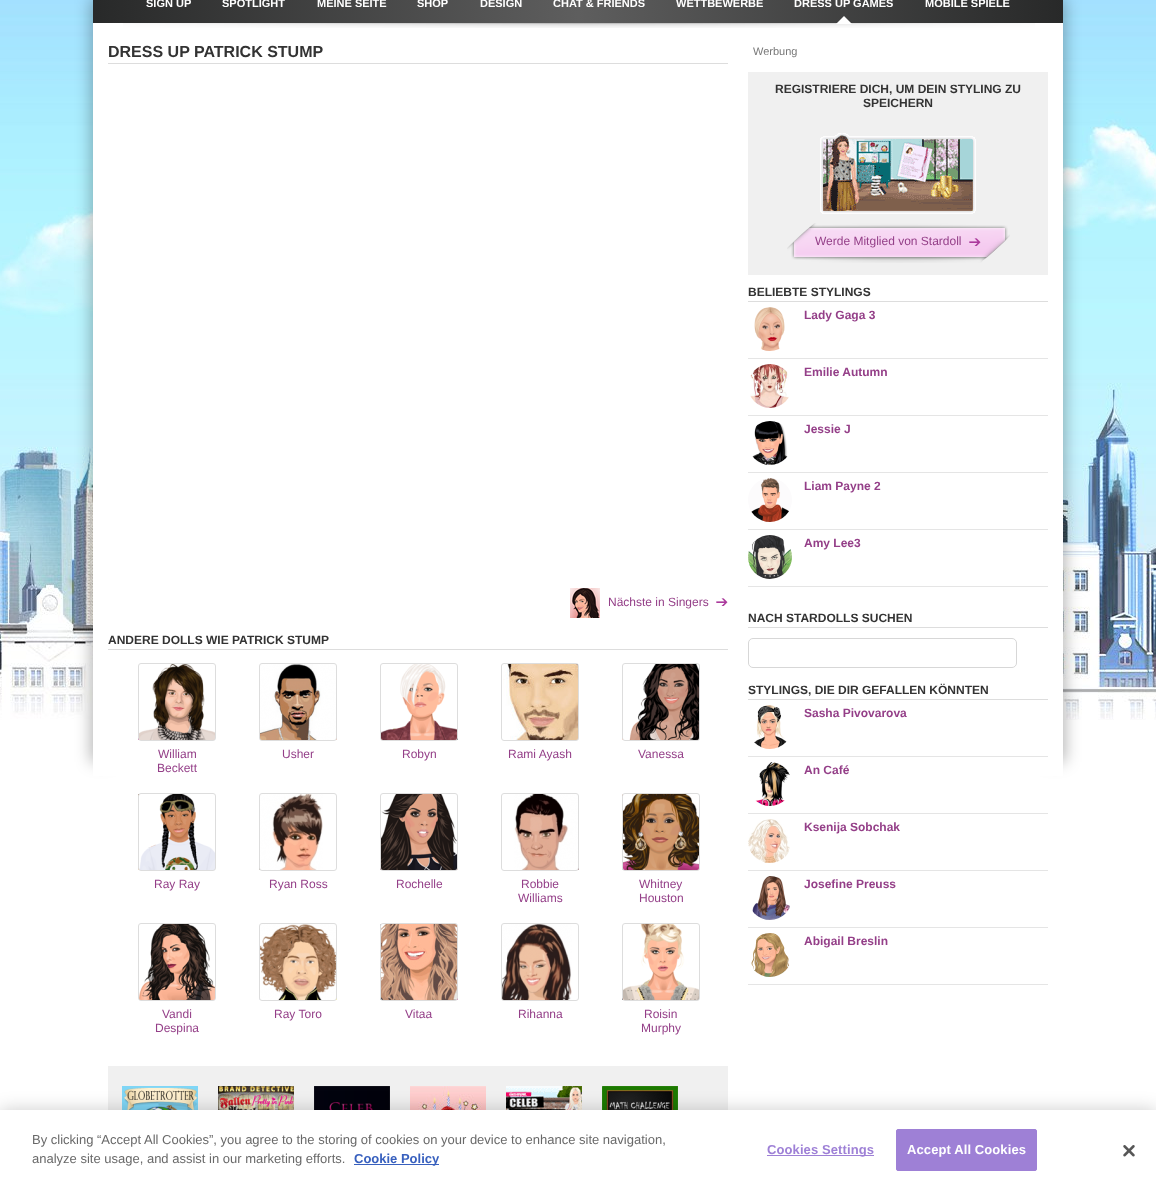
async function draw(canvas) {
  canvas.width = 1156
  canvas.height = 1192
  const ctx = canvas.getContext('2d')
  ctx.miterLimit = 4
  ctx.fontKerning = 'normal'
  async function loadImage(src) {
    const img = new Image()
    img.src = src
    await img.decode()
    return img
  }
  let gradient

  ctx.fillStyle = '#fff'
  ctx.fillRect(0, 0, 1156, 1192)
  ctx.drawImage(await loadImage('image0.png'), 0, 0, 1156, 720)
  ctx.fillStyle = '#0000004d'
  ctx.filter = 'blur(8px)'
  ctx.beginPath()
  ctx.rect(91, -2, 20, 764)
  ctx.fill()
  ctx.filter = 'none'
  ctx.filter = 'blur(8px)'
  ctx.beginPath()
  ctx.rect(1045, -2, 20, 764)
  ctx.fill()
  ctx.filter = 'none'
  gradient = ctx.createLinearGradient(93, 3, 1063, 3)
  gradient.addColorStop(0, '#282929')
  gradient.addColorStop(0.5, '#5e5e5e')
  gradient.addColorStop(1, '#282929')
  ctx.fillStyle = gradient
  ctx.fillRect(93, 0, 970, 23)
  ctx.font = 'bold 11px Liberation Sans'
  ctx.fillStyle = '#fff'
  ctx.fillText('SIGN UP', 146, 7)
  ctx.fillText('SPOTLIGHT', 222, 7)
  ctx.fillText('MEINE SEITE', 317, 7)
  ctx.fillText('SHOP', 417, 7)
  ctx.fillText('DESIGN', 480, 7)
  ctx.fillText('CHAT & FRIENDS', 553, 7)
  ctx.fillText('WETTBEWERBE', 676, 7)
  ctx.fillText('DRESS UP GAMES', 794, 7)
  ctx.fillRect(93, 23, 970, 753)
  ctx.drawImage(await loadImage('image1.png'), 123, 23, 912, 5)
  ctx.beginPath()
  ctx.moveTo(852, 24)
  ctx.lineTo(836, 24)
  ctx.lineTo(844, 16)
  ctx.closePath()
  ctx.fill()
  ctx.fillText('MOBILE SPIELE', 925, 7)
  ctx.fillStyle = '#ddd'
  ctx.fillRect(108, 63, 620, 1)
  ctx.font = 'bold 16px Liberation Sans'
  ctx.fillStyle = '#333'
  ctx.fillText('DRESS UP PATRICK STUMP', 108, 57)
  ctx.drawImage(await loadImage('image2.png'), 570, 588, 30, 30)
  ctx.drawImage(await loadImage('image3.png'), 716, 598, 12, 8)
  ctx.font = '12px Liberation Sans'
  ctx.fillStyle = '#943f88'
  ctx.fillText('Nächste in Singers', 608, 606)
  ctx.fillStyle = '#ddd'
  ctx.fillRect(108, 649, 620, 1)
  ctx.font = 'bold 12px Liberation Sans'
  ctx.fillStyle = '#333'
  ctx.fillText('ANDERE DOLLS WIE PATRICK STUMP', 108, 644)
  ctx.drawImage(await loadImage('image4.png'), 138, 664, 77, 76)
  ctx.beginPath()
  ctx.roundRect(138.5, 663.5, 77, 77, 2.5)
  ctx.strokeStyle = '#ddd'
  ctx.stroke()
  ctx.font = '12px Liberation Sans'
  ctx.fillStyle = '#943f88'
  ctx.fillText('William', 158, 758)
  ctx.fillText('Beckett', 157, 772)
  ctx.drawImage(await loadImage('image5.png'), 260, 664, 77, 76)
  ctx.beginPath()
  ctx.roundRect(259.5, 663.5, 77, 77, 2.5)
  ctx.stroke()
  ctx.fillText('Usher', 282, 758)
  ctx.drawImage(await loadImage('image6.png'), 381, 664, 77, 76)
  ctx.beginPath()
  ctx.roundRect(380.5, 663.5, 77, 77, 2.5)
  ctx.stroke()
  ctx.fillText('Robyn', 402, 758)
  ctx.drawImage(await loadImage('image7.png'), 503, 664, 76, 76)
  ctx.beginPath()
  ctx.roundRect(501.5, 663.5, 77, 77, 2.5)
  ctx.stroke()
  ctx.fillText('Rami Ayash', 508, 758)
  ctx.drawImage(await loadImage('image8.png'), 622, 664, 78, 76)
  ctx.beginPath()
  ctx.roundRect(622.5, 663.5, 77, 77, 2.5)
  ctx.stroke()
  ctx.fillText('Vanessa', 638, 758)
  ctx.drawImage(await loadImage('image9.png'), 138, 794, 78, 76)
  ctx.beginPath()
  ctx.roundRect(138.5, 793.5, 77, 77, 2.5)
  ctx.stroke()
  ctx.fillText('Ray Ray', 154, 888)
  ctx.drawImage(await loadImage('image10.png'), 259, 794, 64, 76)
  ctx.beginPath()
  ctx.roundRect(259.5, 793.5, 77, 77, 2.5)
  ctx.stroke()
  ctx.fillText('Ryan Ross', 269, 888)
  ctx.drawImage(await loadImage('image11.png'), 380, 794, 78, 76)
  ctx.beginPath()
  ctx.roundRect(380.5, 793.5, 77, 77, 2.5)
  ctx.stroke()
  ctx.fillText('Rochelle', 396, 888)
  ctx.drawImage(await loadImage('image12.png'), 514, 794, 65, 76)
  ctx.beginPath()
  ctx.roundRect(501.5, 793.5, 77, 77, 2.5)
  ctx.stroke()
  ctx.fillText('Robbie', 521, 888)
  ctx.fillText('Williams', 518, 902)
  ctx.drawImage(await loadImage('image13.png'), 622, 794, 78, 76)
  ctx.beginPath()
  ctx.roundRect(622.5, 793.5, 77, 77, 2.5)
  ctx.stroke()
  ctx.fillText('Whitney', 639, 888)
  ctx.fillText('Houston', 639, 902)
  ctx.drawImage(await loadImage('image14.png'), 139, 924, 76, 76)
  ctx.beginPath()
  ctx.roundRect(138.5, 923.5, 77, 77, 2.5)
  ctx.stroke()
  ctx.fillText('Vandi', 162, 1018)
  ctx.fillText('Despina', 155, 1032)
  ctx.drawImage(await loadImage('image15.png'), 259, 924, 78, 76)
  ctx.beginPath()
  ctx.roundRect(259.5, 923.5, 77, 77, 2.5)
  ctx.stroke()
  ctx.fillText('Ray Toro', 274, 1018)
  ctx.drawImage(await loadImage('image16.png'), 380, 924, 78, 76)
  ctx.beginPath()
  ctx.roundRect(380.5, 923.5, 77, 77, 2.5)
  ctx.stroke()
  ctx.fillText('Vitaa', 405, 1018)
  ctx.drawImage(await loadImage('image17.png'), 501, 924, 71, 76)
  ctx.beginPath()
  ctx.roundRect(501.5, 923.5, 77, 77, 2.5)
  ctx.stroke()
  ctx.fillText('Rihanna', 518, 1018)
  ctx.drawImage(await loadImage('image18.png'), 622, 924, 77, 76)
  ctx.beginPath()
  ctx.roundRect(622.5, 923.5, 77, 77, 2.5)
  ctx.stroke()
  ctx.fillText('Roisin', 644, 1018)
  ctx.fillText('Murphy', 641, 1032)
  ctx.fillStyle = '#f0f0f0'
  ctx.fillRect(108, 1066, 620, 44)
  ctx.drawImage(await loadImage('image19.png'), 122, 1086, 76, 24)
  ctx.drawImage(await loadImage('image20.png'), 218, 1086, 76, 24)
  ctx.drawImage(await loadImage('image21.png'), 314, 1086, 76, 24)
  ctx.drawImage(await loadImage('image22.png'), 410, 1086, 76, 24)
  ctx.drawImage(await loadImage('image23.png'), 506, 1086, 76, 24)
  ctx.drawImage(await loadImage('image24.png'), 602, 1086, 76, 24)
  ctx.font = '11px Liberation Sans'
  ctx.fillStyle = '#787878'
  ctx.fillText('Werbung', 753, 55)
  ctx.fillStyle = '#f0f0f0'
  ctx.fillRect(748, 72, 300, 203)
  ctx.font = 'bold 12px Liberation Sans'
  ctx.fillStyle = '#333'
  ctx.fillText('REGISTRIERE DICH, UM DEIN STYLING ZU', 775, 93)
  ctx.fillText('SPEICHERN', 863, 107)
  ctx.drawImage(await loadImage('image25.png'), 820, 133, 156, 81)
  ctx.drawImage(await loadImage('image26.png'), 787, 223, 223, 40)
  ctx.drawImage(await loadImage('image27.png'), 969, 238, 12, 8)
  ctx.font = '12px Liberation Sans'
  ctx.fillStyle = '#943f88'
  ctx.fillText('Werde Mitglied von Stardoll', 815, 245)
  ctx.fillStyle = '#ddd'
  ctx.fillRect(748, 301, 300, 1)
  ctx.font = 'bold 12px Liberation Sans'
  ctx.fillStyle = '#333'
  ctx.fillText('BELIEBTE STYLINGS', 748, 296)
  ctx.fillStyle = '#e5e5e5'
  ctx.fillRect(748, 358, 300, 1)
  ctx.drawImage(await loadImage('image28.png'), 754, 307, 31, 44)
  ctx.fillStyle = '#943f88'
  ctx.fillText('Lady Gaga 3', 804, 319)
  ctx.fillStyle = '#e5e5e5'
  ctx.fillRect(748, 415, 300, 1)
  ctx.drawImage(await loadImage('image29.png'), 750, 364, 39, 44)
  ctx.fillStyle = '#943f88'
  ctx.fillText('Emilie Autumn', 804, 376)
  ctx.fillStyle = '#e5e5e5'
  ctx.fillRect(748, 472, 300, 1)
  ctx.drawImage(await loadImage('image30.png'), 752, 421, 36, 44)
  ctx.fillStyle = '#943f88'
  ctx.fillText('Jessie J', 804, 433)
  ctx.fillStyle = '#e5e5e5'
  ctx.fillRect(748, 529, 300, 1)
  ctx.drawImage(await loadImage('image31.png'), 748, 478, 44, 44)
  ctx.fillStyle = '#943f88'
  ctx.fillText('Liam Payne 2', 804, 490)
  ctx.fillStyle = '#e5e5e5'
  ctx.fillRect(748, 586, 300, 1)
  ctx.drawImage(await loadImage('image32.png'), 748, 535, 44, 44)
  ctx.fillStyle = '#943f88'
  ctx.fillText('Amy Lee3', 804, 547)
  ctx.fillStyle = '#ddd'
  ctx.fillRect(748, 627, 300, 1)
  ctx.fillStyle = '#333'
  ctx.fillText('NACH STARDOLLS SUCHEN', 748, 622)
  ctx.beginPath()
  ctx.roundRect(748.5, 638.5, 268, 29, 4.5)
  ctx.strokeStyle = '#d7d7d7'
  ctx.stroke()
  ctx.fillStyle = '#ddd'
  ctx.fillRect(748, 699, 300, 1)
  ctx.fillStyle = '#333'
  ctx.fillText('STYLINGS, DIE DIR GEFALLEN KÖNNTEN', 748, 694)
  ctx.fillStyle = '#e5e5e5'
  ctx.fillRect(748, 756, 300, 1)
  ctx.drawImage(await loadImage('image33.png'), 754, 705, 33, 44)
  ctx.fillStyle = '#943f88'
  ctx.fillText('Sasha Pivovarova', 804, 717)
  ctx.fillStyle = '#e5e5e5'
  ctx.fillRect(748, 813, 300, 1)
  ctx.drawImage(await loadImage('image34.png'), 755, 762, 35, 44)
  ctx.fillStyle = '#943f88'
  ctx.fillText('An Café', 804, 774)
  ctx.fillStyle = '#e5e5e5'
  ctx.fillRect(748, 870, 300, 1)
  ctx.drawImage(await loadImage('image35.png'), 748, 819, 42, 44)
  ctx.fillStyle = '#943f88'
  ctx.fillText('Ksenija Sobchak', 804, 831)
  ctx.fillStyle = '#e5e5e5'
  ctx.fillRect(748, 927, 300, 1)
  ctx.drawImage(await loadImage('image36.png'), 752, 876, 38, 44)
  ctx.fillStyle = '#943f88'
  ctx.fillText('Josefine Preuss', 804, 888)
  ctx.fillStyle = '#e5e5e5'
  ctx.fillRect(748, 984, 300, 1)
  ctx.drawImage(await loadImage('image37.png'), 751, 933, 39, 44)
  ctx.fillStyle = '#943f88'
  ctx.fillText('Abigail Breslin', 804, 945)
  ctx.fillStyle = '#00000033'
  ctx.filter = 'blur(9px)'
  ctx.beginPath()
  ctx.rect(0, 1110, 1156, 82)
  ctx.fill()
  ctx.filter = 'none'
  ctx.fillStyle = '#fff'
  ctx.fillRect(0, 1110, 1156, 82)
  ctx.font = '13px Liberation Sans'
  ctx.fillStyle = '#696969'
  ctx.fillText('By clicking “Accept All Cookies”, you agree to the storing of cookies on your device to enhance site navigation,', 32, 1144)
  ctx.fillText('analyze site usage, and assist in our marketing efforts.', 32, 1163)
  ctx.fillStyle = '#3860be'
  ctx.fillRect(354, 1164, 85, 1)
  ctx.font = 'bold 13px Liberation Sans'
  ctx.fillText('Cookie Policy', 354, 1163)
  ctx.fillStyle = '#9e80d6'
  ctx.fillRect(767, 1155, 107, 1)
  ctx.letterSpacing = '0.1px'
  ctx.fillText('Cookies Settings', 767, 1154)
  ctx.beginPath()
  ctx.roundRect(896.5, 1129.5, 140, 41, 1.5)
  ctx.fill()
  ctx.strokeStyle = '#9e80d6'
  ctx.stroke()
  ctx.fillStyle = '#fff'
  ctx.fillText('Accept All Cookies', 907, 1154)
  ctx.drawImage(await loadImage('image38.png'), 1123, 1145, 12, 12)
}

draw(document.querySelector('canvas'))
